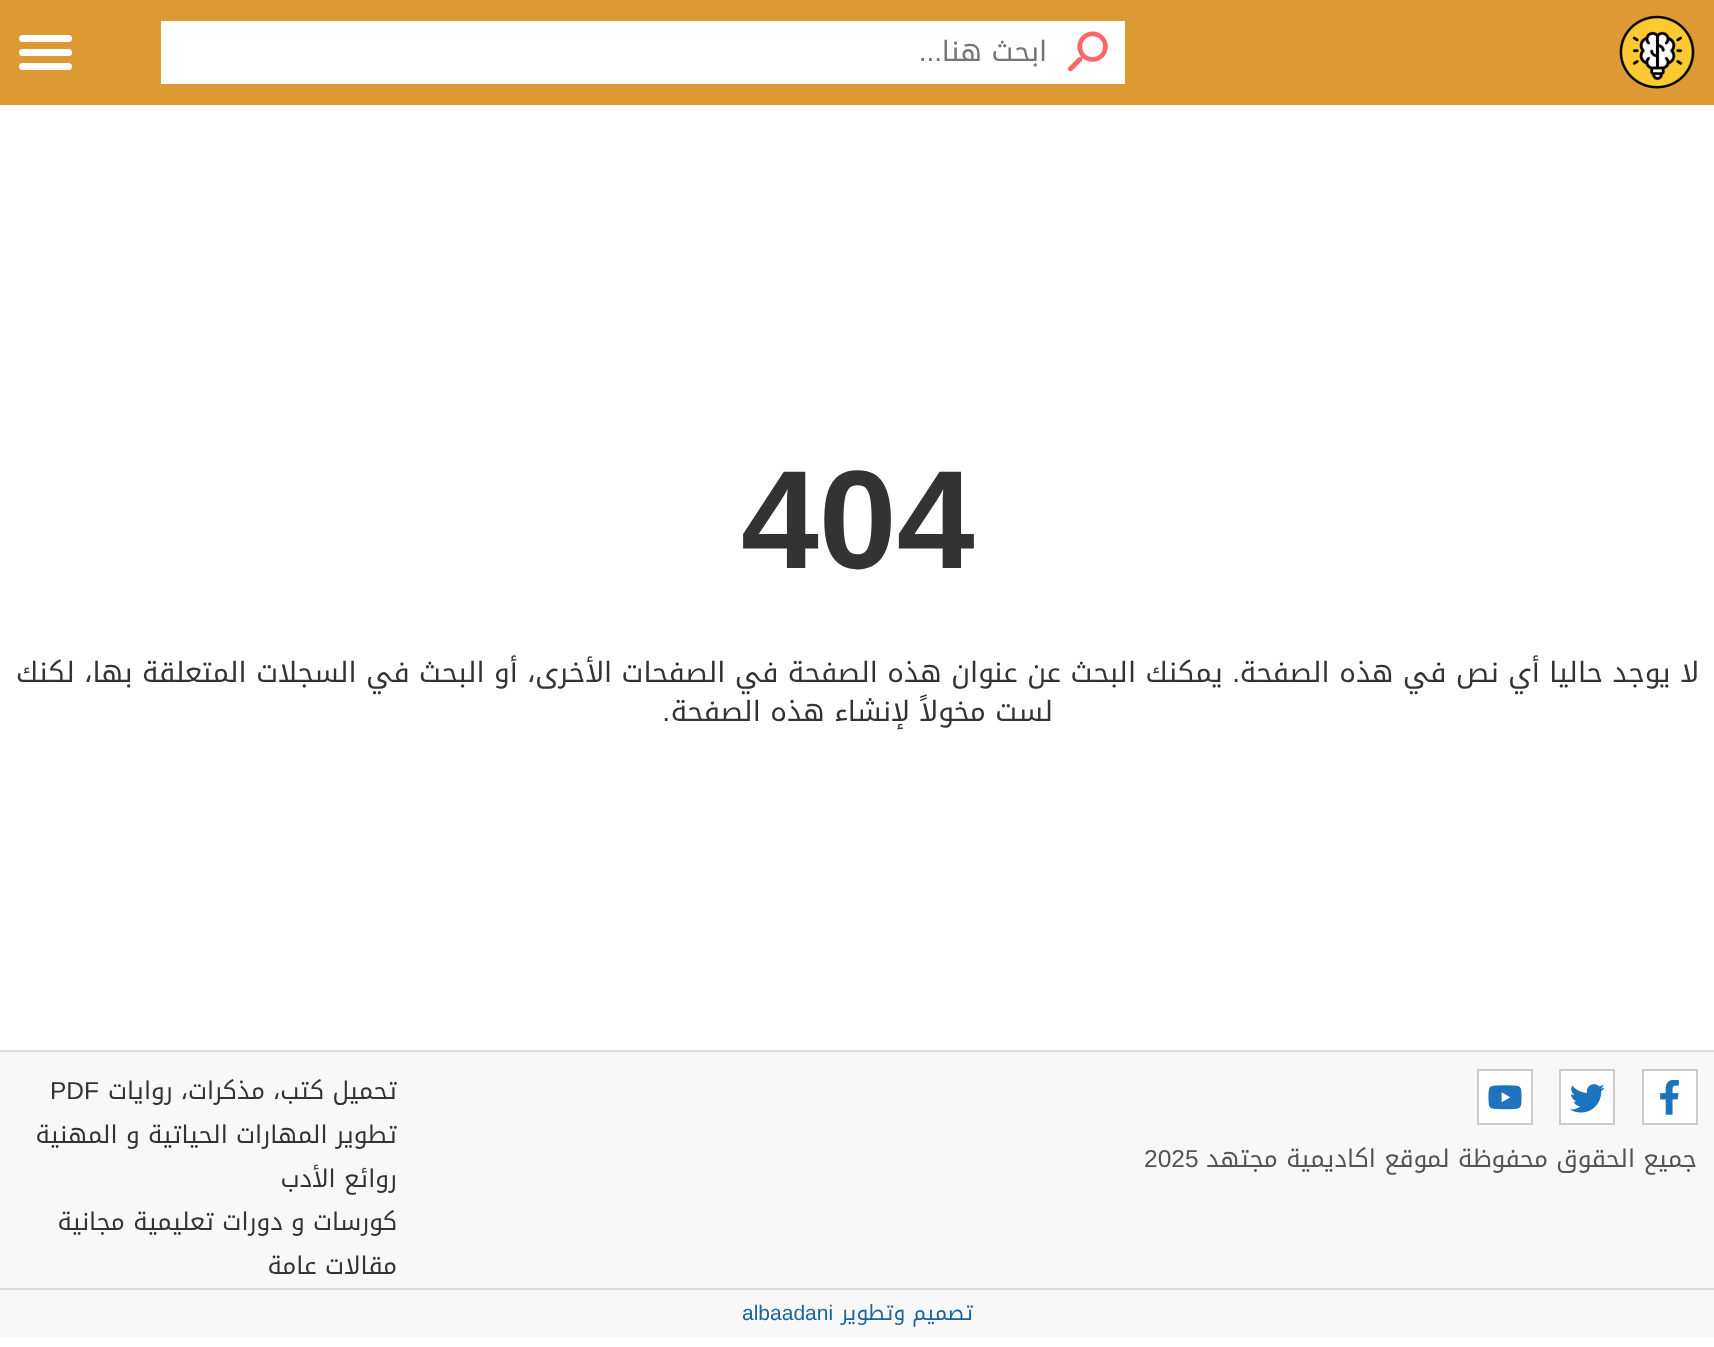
async function draw(canvas) {
  canvas.width = 1714
  canvas.height = 1347
  const ctx = canvas.getContext('2d')
  ctx.miterLimit = 4
  ctx.fontKerning = 'normal'
  async function loadImage(src) {
    const img = new Image()
    img.src = src
    await img.decode()
    return img
  }

  ctx.fillStyle = '#fff'
  ctx.fillRect(0, 0, 1714, 1347)
  ctx.fillStyle = '#d93'
  ctx.fillRect(0, 0, 1714, 105)
  ctx.drawImage(await loadImage('image0.png'), 1619, 15, 76, 75)
  ctx.fillStyle = '#fff'
  ctx.fillRect(161, 21, 964, 63)
  ctx.drawImage(await loadImage('image1.png'), 1068, 31, 40, 41)
  ctx.direction = 'rtl'
  ctx.font = '28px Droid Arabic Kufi'
  ctx.fillStyle = '#757575'
  ctx.fillText('ابحث هنا', 1047, 61)
  ctx.font = '28px Liberation Sans'
  ctx.fillText('...', 942, 61)
  ctx.fillStyle = '#fff'
  ctx.beginPath()
  ctx.roundRect(19, 35, 53, 7, 3.5)
  ctx.fill()
  ctx.beginPath()
  ctx.roundRect(19, 49, 53, 7, 3.5)
  ctx.fill()
  ctx.beginPath()
  ctx.roundRect(19, 63, 53, 7, 3.5)
  ctx.fill()
  ctx.direction = 'ltr'
  ctx.font = 'bold 140px Liberation Sans'
  ctx.fillStyle = '#333'
  ctx.fillText('404', 741, 568)
  ctx.direction = 'rtl'
  ctx.font = '28px Droid Arabic Kufi'
  ctx.fillText('لا يوجد حاليا أي نص في هذه الصفحة', 1699, 682)
  ctx.font = '28px Liberation Sans'
  ctx.fillText('.', 1240, 682)
  ctx.font = '28px Droid Arabic Kufi'
  ctx.fillText('يمكنك البحث عن عنوان هذه الصفحة في الصفحات الأخرى، أو البحث في السجلات المتعلقة بها، لكنك', 1223, 682)
  ctx.fillText('لست مخولاً لإنشاء هذه الصفحة', 1053, 721)
  ctx.font = '28px Liberation Sans'
  ctx.fillText('.', 670, 721)
  ctx.fillStyle = '#f8f8f8'
  ctx.fillRect(0, 1052, 1714, 285)
  ctx.fillStyle = '#ddd'
  ctx.fillRect(0, 1050, 1714, 2)
  ctx.fillStyle = '#fff'
  ctx.beginPath()
  ctx.rect(1643, 1070, 54, 54)
  ctx.fill()
  ctx.strokeStyle = '#ccc'
  ctx.lineWidth = 2
  ctx.stroke()
  ctx.drawImage(await loadImage('image2.png'), 1660, 1080, 19, 35)
  ctx.beginPath()
  ctx.rect(1560, 1070, 54, 54)
  ctx.fill()
  ctx.stroke()
  ctx.drawImage(await loadImage('image3.png'), 1570, 1084, 35, 29)
  ctx.beginPath()
  ctx.rect(1478, 1070, 54, 54)
  ctx.fill()
  ctx.stroke()
  ctx.drawImage(await loadImage('image4.png'), 1488, 1085, 34, 25)
  ctx.font = '24.5px Droid Arabic Kufi'
  ctx.fillStyle = '#545454'
  ctx.fillText('جميع الحقوق محفوظة لموقع اكاديمية مجتهد', 1697, 1167)
  ctx.direction = 'ltr'
  ctx.font = '24.5px Liberation Sans'
  ctx.fillText('2025', 1144, 1167)
  ctx.direction = 'rtl'
  ctx.font = '24.5px Droid Arabic Kufi'
  ctx.fillStyle = '#333'
  ctx.fillText('تحميل كتب، مذكرات، روايات', 397, 1099)
  ctx.direction = 'ltr'
  ctx.font = '24.5px Liberation Sans'
  ctx.fillText('PDF', 50, 1099)
  ctx.direction = 'rtl'
  ctx.font = '24.5px Droid Arabic Kufi'
  ctx.fillText('تطوير المهارات الحياتية و المهنية', 397, 1143)
  ctx.fillText('روائع الأدب', 397, 1187)
  ctx.fillText('كورسات و دورات تعليمية مجانية', 397, 1230)
  ctx.fillText('مقالات عامة', 397, 1274)
  ctx.fillStyle = '#ddd'
  ctx.fillRect(0, 1288, 1714, 2)
  ctx.font = '21px Droid Arabic Kufi'
  ctx.fillStyle = '#1a659e'
  ctx.fillText('تصميم وتطوير', 973, 1320)
  ctx.direction = 'ltr'
  ctx.font = '21px Liberation Sans'
  ctx.fillText('albaadani', 742, 1320)
}

draw(document.querySelector('canvas'))
